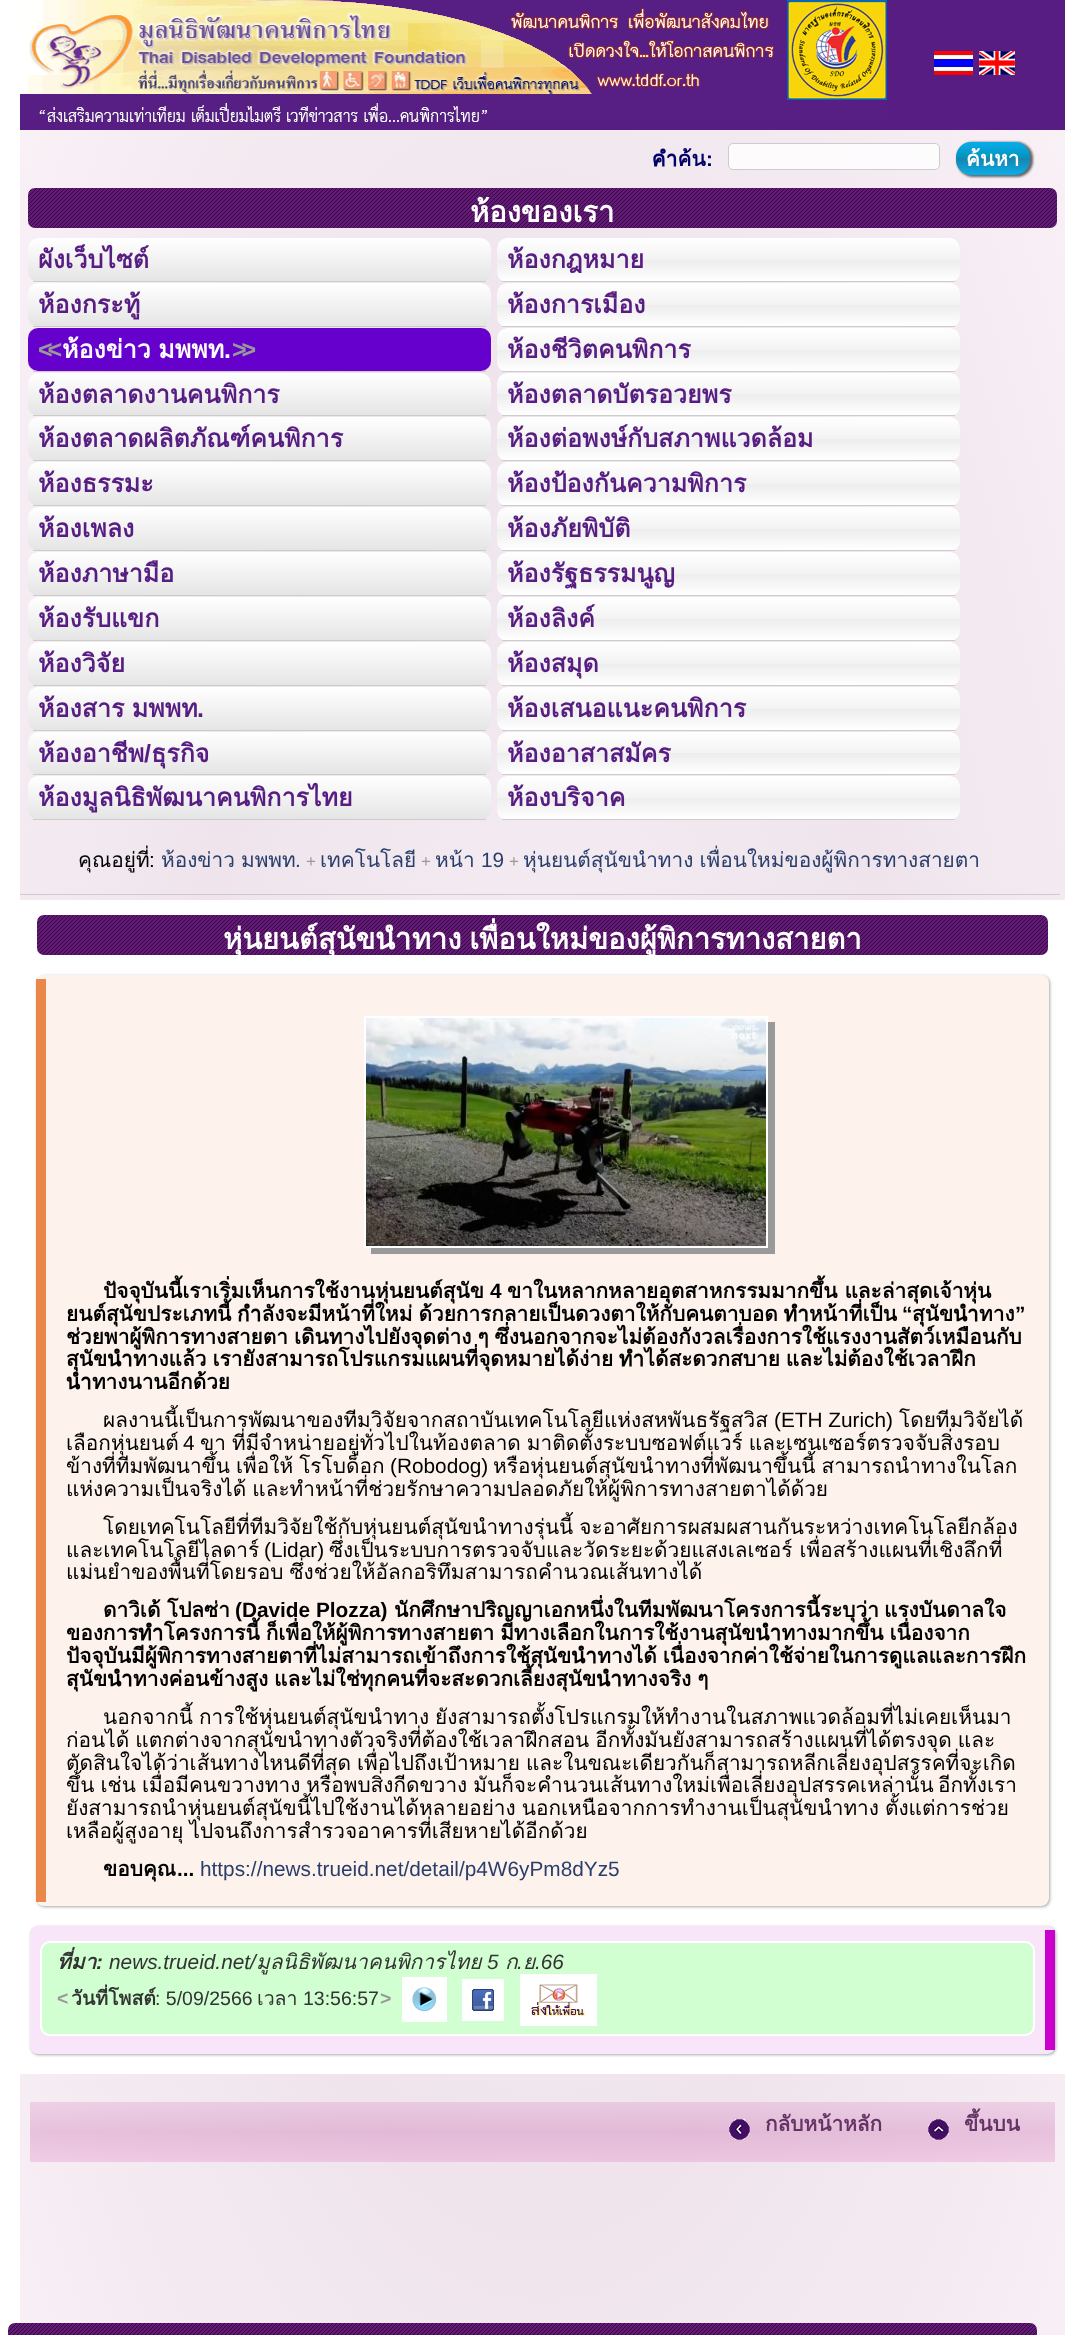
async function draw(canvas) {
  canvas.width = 1085
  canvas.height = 2335
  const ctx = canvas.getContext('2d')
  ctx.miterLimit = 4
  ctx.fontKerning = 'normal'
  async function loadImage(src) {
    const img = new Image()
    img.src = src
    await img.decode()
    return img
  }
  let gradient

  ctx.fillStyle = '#fff'
  ctx.fillRect(0, 0, 1085, 2335)
  gradient = ctx.createRadialGradient(543, 522.72, 0, 543, 522.72, 739)
  gradient.addColorStop(0, '#f5f0f4')
  gradient.addColorStop(0.5, '#efe4ec')
  gradient.addColorStop(1, '#f9f2f7')
  ctx.fillStyle = gradient
  ctx.beginPath()
  ctx.rect(20, 130, 1045, 2205)
  ctx.save()
  ctx.clip()
  ctx.scale(1, 1828 / 739)
  ctx.fillRect(0, 0, 1085, 944)
  ctx.restore()
  ctx.fillStyle = '#571d82'
  ctx.fillRect(20, 0, 1045, 130)
  ctx.drawImage(await loadImage('image0.png'), 20, 0, 867, 122)
  ctx.drawImage(await loadImage('image1.png'), 934, 51, 39, 24)
  ctx.drawImage(await loadImage('image2.png'), 979, 51, 36, 24)
  ctx.font = 'bold 20.8px Loma'
  ctx.fillStyle = '#006'
  ctx.fillText('คำค้น', 652, 166)
  ctx.font = 'bold 20.8px Liberation Sans'
  ctx.fillText(':', 706, 166)
  ctx.fillStyle = '#ffffffcc'
  ctx.beginPath()
  ctx.roundRect(728.5, 143.5, 211, 26, 4.5)
  ctx.fill()
  ctx.strokeStyle = '#ccc'
  ctx.stroke()
  ctx.fillStyle = '#666'
  ctx.filter = 'blur(1px)'
  ctx.beginPath()
  ctx.roundRect(957, 142, 76, 35, 16)
  ctx.fill()
  ctx.filter = 'none'
  gradient = ctx.createLinearGradient(993, 142, 993, 175)
  gradient.addColorStop(0, '#07adea')
  gradient.addColorStop(0.47, '#0593bf')
  gradient.addColorStop(0.49, '#1a83ad')
  gradient.addColorStop(1, '#09aeea')
  ctx.fillStyle = gradient
  ctx.beginPath()
  ctx.roundRect(956, 142, 74, 33, 15)
  ctx.fill()
  ctx.font = 'bold 20.8px Loma'
  ctx.fillStyle = '#fff'
  ctx.fillText('ค้นหา', 966, 166)
  ctx.drawImage(await loadImage('image3.png'), 28, 188, 1029, 40)
  ctx.font = 'bold 29.1px Loma'
  ctx.fillText('ห้องของเรา', 470, 222)
  ctx.save()
  ctx.beginPath()
  ctx.roundRect(28, 238, 463, 44, 10)
  ctx.clip()
  gradient = ctx.createLinearGradient(260, 238, 260, 281)
  gradient.addColorStop(0, '#fff')
  gradient.addColorStop(1, '#e5e5e5')
  ctx.fillStyle = gradient
  ctx.beginPath()
  ctx.roundRect(28, 238, 463, 43, [10, 10, 0, 0])
  ctx.fill()
  ctx.restore()
  ctx.fillStyle = '#ccc'
  ctx.fillRect(33, 281, 453, 1)
  ctx.font = 'bold 25px Loma'
  ctx.fillStyle = '#571d82'
  ctx.fillText('ผังเว็บไซต์', 38, 268)
  ctx.save()
  ctx.beginPath()
  ctx.roundRect(497, 238, 463, 44, 10)
  ctx.clip()
  gradient = ctx.createLinearGradient(729, 238, 729, 281)
  gradient.addColorStop(0, '#fff')
  gradient.addColorStop(0.5, '#f3f3f3')
  gradient.addColorStop(0.51, '#ededed')
  gradient.addColorStop(1, '#fff')
  ctx.fillStyle = gradient
  ctx.beginPath()
  ctx.roundRect(497, 238, 463, 43, [10, 10, 0, 0])
  ctx.fill()
  ctx.restore()
  ctx.fillStyle = '#ccc'
  ctx.fillRect(502, 281, 453, 1)
  ctx.fillStyle = '#571d82'
  ctx.fillText('ห้องกฎหมาย', 507, 268)
  ctx.save()
  ctx.beginPath()
  ctx.roundRect(28, 283, 463, 44, 10)
  ctx.clip()
  gradient = ctx.createLinearGradient(260, 283, 260, 326)
  gradient.addColorStop(0, '#fff')
  gradient.addColorStop(1, '#e5e5e5')
  ctx.fillStyle = gradient
  ctx.beginPath()
  ctx.roundRect(28, 283, 463, 43, [10, 10, 0, 0])
  ctx.fill()
  ctx.restore()
  ctx.fillStyle = '#ccc'
  ctx.fillRect(33, 326, 453, 1)
  ctx.fillStyle = '#571d82'
  ctx.fillText('ห้องกระทู้', 38, 313)
  ctx.save()
  ctx.beginPath()
  ctx.roundRect(497, 283, 463, 44, 10)
  ctx.clip()
  gradient = ctx.createLinearGradient(729, 283, 729, 326)
  gradient.addColorStop(0, '#fff')
  gradient.addColorStop(0.5, '#f3f3f3')
  gradient.addColorStop(0.51, '#ededed')
  gradient.addColorStop(1, '#fff')
  ctx.fillStyle = gradient
  ctx.beginPath()
  ctx.roundRect(497, 283, 463, 43, [10, 10, 0, 0])
  ctx.fill()
  ctx.restore()
  ctx.fillStyle = '#ccc'
  ctx.fillRect(502, 326, 453, 1)
  ctx.fillStyle = '#571d82'
  ctx.fillText('ห้องการเมือง', 507, 313)
  ctx.save()
  ctx.beginPath()
  ctx.roundRect(28, 328, 463, 44, 10)
  ctx.clip()
  gradient = ctx.createLinearGradient(260, 328, 260, 371)
  gradient.addColorStop(0, '#fff')
  gradient.addColorStop(1, '#e5e5e5')
  ctx.fillStyle = gradient
  ctx.beginPath()
  ctx.roundRect(28, 328, 463, 43, [10, 10, 0, 0])
  ctx.fill()
  ctx.restore()
  ctx.fillStyle = '#ccc'
  ctx.fillRect(33, 371, 453, 1)
  ctx.fillStyle = '#60c'
  ctx.beginPath()
  ctx.roundRect(28, 328, 463, 43, 10)
  ctx.fill()
  ctx.letterSpacing = '-5px'
  ctx.font = 'bold 25px Liberation Sans'
  ctx.fillStyle = '#999'
  ctx.fillText('<<', 38, 358)
  ctx.letterSpacing = '0px'
  ctx.wordSpacing = '-1px'
  ctx.font = 'bold 25px Loma'
  ctx.fillStyle = '#fff'
  ctx.fillText('ห้องข่าว มพพท', 62, 358)
  ctx.wordSpacing = '0px'
  ctx.font = 'bold 25px Liberation Sans'
  ctx.fillText('.', 224, 358)
  ctx.letterSpacing = '-5px'
  ctx.fillStyle = '#999'
  ctx.fillText('>>', 232, 358)
  ctx.save()
  ctx.beginPath()
  ctx.roundRect(497, 328, 463, 44, 10)
  ctx.clip()
  gradient = ctx.createLinearGradient(729, 328, 729, 371)
  gradient.addColorStop(0, '#fff')
  gradient.addColorStop(0.5, '#f3f3f3')
  gradient.addColorStop(0.51, '#ededed')
  gradient.addColorStop(1, '#fff')
  ctx.fillStyle = gradient
  ctx.beginPath()
  ctx.roundRect(497, 328, 463, 43, [10, 10, 0, 0])
  ctx.fill()
  ctx.restore()
  ctx.fillStyle = '#ccc'
  ctx.fillRect(502, 371, 453, 1)
  ctx.letterSpacing = '0px'
  ctx.font = 'bold 25px Loma'
  ctx.fillStyle = '#571d82'
  ctx.fillText('ห้องชีวิตคนพิการ', 507, 358)
  ctx.save()
  ctx.beginPath()
  ctx.roundRect(28, 373, 463, 43, 10)
  ctx.clip()
  gradient = ctx.createLinearGradient(260, 373, 260, 415)
  gradient.addColorStop(0, '#fff')
  gradient.addColorStop(1, '#e5e5e5')
  ctx.fillStyle = gradient
  ctx.beginPath()
  ctx.roundRect(28, 373, 463, 42, [10, 10, 0, 0])
  ctx.fill()
  ctx.restore()
  ctx.fillStyle = '#ccc'
  ctx.fillRect(33, 415, 453, 1)
  ctx.fillStyle = '#571d82'
  ctx.fillText('ห้องตลาดงานคนพิการ', 38, 403)
  ctx.save()
  ctx.beginPath()
  ctx.roundRect(497, 373, 463, 43, 10)
  ctx.clip()
  gradient = ctx.createLinearGradient(729, 373, 729, 415)
  gradient.addColorStop(0, '#fff')
  gradient.addColorStop(0.5, '#f3f3f3')
  gradient.addColorStop(0.51, '#ededed')
  gradient.addColorStop(1, '#fff')
  ctx.fillStyle = gradient
  ctx.beginPath()
  ctx.roundRect(497, 373, 463, 42, [10, 10, 0, 0])
  ctx.fill()
  ctx.restore()
  ctx.fillStyle = '#ccc'
  ctx.fillRect(502, 415, 453, 1)
  ctx.fillStyle = '#571d82'
  ctx.fillText('ห้องตลาดบัตรอวยพร', 507, 403)
  ctx.save()
  ctx.beginPath()
  ctx.roundRect(28, 417, 463, 44, 10)
  ctx.clip()
  gradient = ctx.createLinearGradient(260, 417, 260, 460)
  gradient.addColorStop(0, '#fff')
  gradient.addColorStop(1, '#e5e5e5')
  ctx.fillStyle = gradient
  ctx.beginPath()
  ctx.roundRect(28, 417, 463, 43, [10, 10, 0, 0])
  ctx.fill()
  ctx.restore()
  ctx.fillStyle = '#ccc'
  ctx.fillRect(33, 460, 453, 1)
  ctx.fillStyle = '#571d82'
  ctx.fillText('ห้องตลาดผลิตภัณฑ์คนพิการ', 38, 447)
  ctx.save()
  ctx.beginPath()
  ctx.roundRect(497, 417, 463, 44, 10)
  ctx.clip()
  gradient = ctx.createLinearGradient(729, 417, 729, 460)
  gradient.addColorStop(0, '#fff')
  gradient.addColorStop(0.5, '#f3f3f3')
  gradient.addColorStop(0.51, '#ededed')
  gradient.addColorStop(1, '#fff')
  ctx.fillStyle = gradient
  ctx.beginPath()
  ctx.roundRect(497, 417, 463, 43, [10, 10, 0, 0])
  ctx.fill()
  ctx.restore()
  ctx.fillStyle = '#ccc'
  ctx.fillRect(502, 460, 453, 1)
  ctx.fillStyle = '#571d82'
  ctx.fillText('ห้องต่อพงษ์กับสภาพแวดล้อม', 507, 447)
  ctx.save()
  ctx.beginPath()
  ctx.roundRect(28, 462, 463, 44, 10)
  ctx.clip()
  gradient = ctx.createLinearGradient(260, 462, 260, 505)
  gradient.addColorStop(0, '#fff')
  gradient.addColorStop(1, '#e5e5e5')
  ctx.fillStyle = gradient
  ctx.beginPath()
  ctx.roundRect(28, 462, 463, 43, [10, 10, 0, 0])
  ctx.fill()
  ctx.restore()
  ctx.fillStyle = '#ccc'
  ctx.fillRect(33, 505, 453, 1)
  ctx.fillStyle = '#571d82'
  ctx.fillText('ห้องธรรมะ', 38, 492)
  ctx.save()
  ctx.beginPath()
  ctx.roundRect(497, 462, 463, 44, 10)
  ctx.clip()
  gradient = ctx.createLinearGradient(729, 462, 729, 505)
  gradient.addColorStop(0, '#fff')
  gradient.addColorStop(0.5, '#f3f3f3')
  gradient.addColorStop(0.51, '#ededed')
  gradient.addColorStop(1, '#fff')
  ctx.fillStyle = gradient
  ctx.beginPath()
  ctx.roundRect(497, 462, 463, 43, [10, 10, 0, 0])
  ctx.fill()
  ctx.restore()
  ctx.fillStyle = '#ccc'
  ctx.fillRect(502, 505, 453, 1)
  ctx.fillStyle = '#571d82'
  ctx.fillText('ห้องป้องกันความพิการ', 507, 492)
  ctx.save()
  ctx.beginPath()
  ctx.roundRect(28, 507, 463, 44, 10)
  ctx.clip()
  gradient = ctx.createLinearGradient(260, 507, 260, 550)
  gradient.addColorStop(0, '#fff')
  gradient.addColorStop(1, '#e5e5e5')
  ctx.fillStyle = gradient
  ctx.beginPath()
  ctx.roundRect(28, 507, 463, 43, [10, 10, 0, 0])
  ctx.fill()
  ctx.restore()
  ctx.fillStyle = '#ccc'
  ctx.fillRect(33, 550, 453, 1)
  ctx.fillStyle = '#571d82'
  ctx.fillText('ห้องเพลง', 38, 537)
  ctx.save()
  ctx.beginPath()
  ctx.roundRect(497, 507, 463, 44, 10)
  ctx.clip()
  gradient = ctx.createLinearGradient(729, 507, 729, 550)
  gradient.addColorStop(0, '#fff')
  gradient.addColorStop(0.5, '#f3f3f3')
  gradient.addColorStop(0.51, '#ededed')
  gradient.addColorStop(1, '#fff')
  ctx.fillStyle = gradient
  ctx.beginPath()
  ctx.roundRect(497, 507, 463, 43, [10, 10, 0, 0])
  ctx.fill()
  ctx.restore()
  ctx.fillStyle = '#ccc'
  ctx.fillRect(502, 550, 453, 1)
  ctx.fillStyle = '#571d82'
  ctx.fillText('ห้องภัยพิบัติ', 507, 537)
  ctx.save()
  ctx.beginPath()
  ctx.roundRect(28, 552, 463, 44, 10)
  ctx.clip()
  gradient = ctx.createLinearGradient(260, 552, 260, 595)
  gradient.addColorStop(0, '#fff')
  gradient.addColorStop(1, '#e5e5e5')
  ctx.fillStyle = gradient
  ctx.beginPath()
  ctx.roundRect(28, 552, 463, 43, [10, 10, 0, 0])
  ctx.fill()
  ctx.restore()
  ctx.fillStyle = '#ccc'
  ctx.fillRect(33, 595, 453, 1)
  ctx.fillStyle = '#571d82'
  ctx.fillText('ห้องภาษามือ', 38, 582)
  ctx.save()
  ctx.beginPath()
  ctx.roundRect(497, 552, 463, 44, 10)
  ctx.clip()
  gradient = ctx.createLinearGradient(729, 552, 729, 595)
  gradient.addColorStop(0, '#fff')
  gradient.addColorStop(0.5, '#f3f3f3')
  gradient.addColorStop(0.51, '#ededed')
  gradient.addColorStop(1, '#fff')
  ctx.fillStyle = gradient
  ctx.beginPath()
  ctx.roundRect(497, 552, 463, 43, [10, 10, 0, 0])
  ctx.fill()
  ctx.restore()
  ctx.fillStyle = '#ccc'
  ctx.fillRect(502, 595, 453, 1)
  ctx.fillStyle = '#571d82'
  ctx.fillText('ห้องรัฐธรรมนูญ', 507, 582)
  ctx.save()
  ctx.beginPath()
  ctx.roundRect(28, 597, 463, 44, 10)
  ctx.clip()
  gradient = ctx.createLinearGradient(260, 597, 260, 640)
  gradient.addColorStop(0, '#fff')
  gradient.addColorStop(1, '#e5e5e5')
  ctx.fillStyle = gradient
  ctx.beginPath()
  ctx.roundRect(28, 597, 463, 43, [10, 10, 0, 0])
  ctx.fill()
  ctx.restore()
  ctx.fillStyle = '#ccc'
  ctx.fillRect(33, 640, 453, 1)
  ctx.fillStyle = '#571d82'
  ctx.fillText('ห้องรับแขก', 38, 627)
  ctx.save()
  ctx.beginPath()
  ctx.roundRect(497, 597, 463, 44, 10)
  ctx.clip()
  gradient = ctx.createLinearGradient(729, 597, 729, 640)
  gradient.addColorStop(0, '#fff')
  gradient.addColorStop(0.5, '#f3f3f3')
  gradient.addColorStop(0.51, '#ededed')
  gradient.addColorStop(1, '#fff')
  ctx.fillStyle = gradient
  ctx.beginPath()
  ctx.roundRect(497, 597, 463, 43, [10, 10, 0, 0])
  ctx.fill()
  ctx.restore()
  ctx.fillStyle = '#ccc'
  ctx.fillRect(502, 640, 453, 1)
  ctx.fillStyle = '#571d82'
  ctx.fillText('ห้องลิงค์', 507, 627)
  ctx.save()
  ctx.beginPath()
  ctx.roundRect(28, 642, 463, 44, 10)
  ctx.clip()
  gradient = ctx.createLinearGradient(260, 642, 260, 685)
  gradient.addColorStop(0, '#fff')
  gradient.addColorStop(1, '#e5e5e5')
  ctx.fillStyle = gradient
  ctx.beginPath()
  ctx.roundRect(28, 642, 463, 43, [10, 10, 0, 0])
  ctx.fill()
  ctx.restore()
  ctx.fillStyle = '#ccc'
  ctx.fillRect(33, 685, 453, 1)
  ctx.fillStyle = '#571d82'
  ctx.fillText('ห้องวิจัย', 38, 672)
  ctx.save()
  ctx.beginPath()
  ctx.roundRect(497, 642, 463, 44, 10)
  ctx.clip()
  gradient = ctx.createLinearGradient(729, 642, 729, 685)
  gradient.addColorStop(0, '#fff')
  gradient.addColorStop(0.5, '#f3f3f3')
  gradient.addColorStop(0.51, '#ededed')
  gradient.addColorStop(1, '#fff')
  ctx.fillStyle = gradient
  ctx.beginPath()
  ctx.roundRect(497, 642, 463, 43, [10, 10, 0, 0])
  ctx.fill()
  ctx.restore()
  ctx.fillStyle = '#ccc'
  ctx.fillRect(502, 685, 453, 1)
  ctx.fillStyle = '#571d82'
  ctx.fillText('ห้องสมุด', 507, 672)
  ctx.save()
  ctx.beginPath()
  ctx.roundRect(28, 687, 463, 44, 10)
  ctx.clip()
  gradient = ctx.createLinearGradient(260, 687, 260, 730)
  gradient.addColorStop(0, '#fff')
  gradient.addColorStop(1, '#e5e5e5')
  ctx.fillStyle = gradient
  ctx.beginPath()
  ctx.roundRect(28, 687, 463, 43, [10, 10, 0, 0])
  ctx.fill()
  ctx.restore()
  ctx.fillStyle = '#ccc'
  ctx.fillRect(33, 730, 453, 1)
  ctx.wordSpacing = '-1px'
  ctx.fillStyle = '#571d82'
  ctx.fillText('ห้องสาร มพพท', 38, 717)
  ctx.wordSpacing = '0px'
  ctx.font = 'bold 25px Liberation Sans'
  ctx.fillText('.', 197, 717)
  ctx.save()
  ctx.beginPath()
  ctx.roundRect(497, 687, 463, 44, 10)
  ctx.clip()
  gradient = ctx.createLinearGradient(729, 687, 729, 730)
  gradient.addColorStop(0, '#fff')
  gradient.addColorStop(0.5, '#f3f3f3')
  gradient.addColorStop(0.51, '#ededed')
  gradient.addColorStop(1, '#fff')
  ctx.fillStyle = gradient
  ctx.beginPath()
  ctx.roundRect(497, 687, 463, 43, [10, 10, 0, 0])
  ctx.fill()
  ctx.restore()
  ctx.fillStyle = '#ccc'
  ctx.fillRect(502, 730, 453, 1)
  ctx.font = 'bold 25px Loma'
  ctx.fillStyle = '#571d82'
  ctx.fillText('ห้องเสนอแนะคนพิการ', 507, 717)
  ctx.save()
  ctx.beginPath()
  ctx.roundRect(28, 732, 463, 43, 10)
  ctx.clip()
  gradient = ctx.createLinearGradient(260, 732, 260, 774)
  gradient.addColorStop(0, '#fff')
  gradient.addColorStop(1, '#e5e5e5')
  ctx.fillStyle = gradient
  ctx.beginPath()
  ctx.roundRect(28, 732, 463, 42, [10, 10, 0, 0])
  ctx.fill()
  ctx.restore()
  ctx.fillStyle = '#ccc'
  ctx.fillRect(33, 774, 453, 1)
  ctx.fillStyle = '#571d82'
  ctx.fillText('ห้องอาชีพ', 38, 762)
  ctx.font = 'bold 25px Liberation Sans'
  ctx.fillText('/', 144, 762)
  ctx.font = 'bold 25px Loma'
  ctx.fillText('ธุรกิจ', 151, 762)
  ctx.save()
  ctx.beginPath()
  ctx.roundRect(497, 732, 463, 43, 10)
  ctx.clip()
  gradient = ctx.createLinearGradient(729, 732, 729, 774)
  gradient.addColorStop(0, '#fff')
  gradient.addColorStop(0.5, '#f3f3f3')
  gradient.addColorStop(0.51, '#ededed')
  gradient.addColorStop(1, '#fff')
  ctx.fillStyle = gradient
  ctx.beginPath()
  ctx.roundRect(497, 732, 463, 42, [10, 10, 0, 0])
  ctx.fill()
  ctx.restore()
  ctx.fillStyle = '#ccc'
  ctx.fillRect(502, 774, 453, 1)
  ctx.fillStyle = '#571d82'
  ctx.fillText('ห้องอาสาสมัคร', 507, 762)
  ctx.save()
  ctx.beginPath()
  ctx.roundRect(28, 776, 463, 44, 10)
  ctx.clip()
  gradient = ctx.createLinearGradient(260, 776, 260, 819)
  gradient.addColorStop(0, '#fff')
  gradient.addColorStop(1, '#e5e5e5')
  ctx.fillStyle = gradient
  ctx.beginPath()
  ctx.roundRect(28, 776, 463, 43, [10, 10, 0, 0])
  ctx.fill()
  ctx.restore()
  ctx.fillStyle = '#ccc'
  ctx.fillRect(33, 819, 453, 1)
  ctx.fillStyle = '#571d82'
  ctx.fillText('ห้องมูลนิธิพัฒนาคนพิการไทย', 38, 806)
  ctx.save()
  ctx.beginPath()
  ctx.roundRect(497, 776, 463, 44, 10)
  ctx.clip()
  gradient = ctx.createLinearGradient(729, 776, 729, 819)
  gradient.addColorStop(0, '#fff')
  gradient.addColorStop(0.5, '#f3f3f3')
  gradient.addColorStop(0.51, '#ededed')
  gradient.addColorStop(1, '#fff')
  ctx.fillStyle = gradient
  ctx.beginPath()
  ctx.roundRect(497, 776, 463, 43, [10, 10, 0, 0])
  ctx.fill()
  ctx.restore()
  ctx.fillStyle = '#ccc'
  ctx.fillRect(502, 819, 453, 1)
  ctx.fillStyle = '#571d82'
  ctx.fillText('ห้องบริจาค', 507, 806)
  ctx.fillStyle = '#ccc'
  ctx.fillRect(20, 894, 1040, 1)
  ctx.font = '20.8px Loma'
  ctx.fillStyle = '#000'
  ctx.fillText('คุณอยู่ที่', 78, 867)
  ctx.font = '20.8px Liberation Sans'
  ctx.fillText(':', 149, 867)
  ctx.wordSpacing = '-1px'
  ctx.font = '20.8px Loma'
  ctx.fillStyle = '#293e6b'
  ctx.fillText('ห้องข่าว มพพท', 161, 867)
  ctx.wordSpacing = '0px'
  ctx.fillText('เทคโนโลยี', 320, 867)
  ctx.fillText('หน้า', 435, 867)
  ctx.font = '20.8px Liberation Sans'
  ctx.fillText('19', 481, 867)
  ctx.wordSpacing = '-1px'
  ctx.font = '20.8px Loma'
  ctx.fillText('หุ่นยนต์สุนัขนำทาง เพื่อนใหม่ของผู้พิการทางสายตา', 523, 867)
  ctx.wordSpacing = '0px'
  ctx.font = '20.8px Liberation Sans'
  ctx.fillText('.', 295, 867)
  ctx.font = '17px Liberation Sans'
  ctx.fillStyle = '#999'
  ctx.fillText('+', 306, 867)
  ctx.fillText('+', 421, 867)
  ctx.fillText('+', 509, 867)
  ctx.fillStyle = '#fff'
  ctx.fillRect(20, 900, 1045, 1174)
  ctx.drawImage(await loadImage('image4.png'), 37, 915, 1011, 40)
  ctx.wordSpacing = '-2px'
  ctx.font = 'bold 29.1px Loma'
  ctx.fillText('หุ่นยนต์สุนัขนำทาง เพื่อนใหม่ของผู้พิการทางสายตา', 223, 949)
  ctx.fillStyle = '#aaa'
  ctx.filter = 'blur(1.5px)'
  ctx.beginPath()
  ctx.roundRect(37, 976, 1013, 931, 8)
  ctx.fill()
  ctx.filter = 'none'
  ctx.fillStyle = '#fdf3ec'
  ctx.beginPath()
  ctx.roundRect(36, 975, 1013, 931, 8)
  ctx.fill()
  ctx.fillStyle = '#ec874a'
  ctx.fillRect(36, 979, 10, 923)
  ctx.fillStyle = '#999'
  ctx.beginPath()
  ctx.moveTo(371, 1248)
  ctx.lineTo(371, 1254)
  ctx.lineTo(775, 1254)
  ctx.lineTo(775, 1022)
  ctx.lineTo(768, 1022)
  ctx.lineTo(768, 1248)
  ctx.closePath()
  ctx.fill()
  ctx.strokeStyle = '#fff'
  ctx.lineWidth = 2
  ctx.strokeRect(365, 1017, 402, 230)
  ctx.drawImage(await loadImage('image5.png'), 366, 1018, 400, 228)
  ctx.wordSpacing = '0px'
  ctx.font = 'bold 20.8px Loma'
  ctx.fillStyle = '#000'
  ctx.fillText('ปัจจุบันนี้เราเริ่มเห็นการใช้งานหุ่นยนต์สุนัข', 103, 1298)
  ctx.font = 'bold 20.8px Liberation Sans'
  ctx.fillText('4', 490, 1298)
  ctx.font = 'bold 20.8px Loma'
  ctx.fillText('ขาในหลากหลายอุตสาหกรรมมากขึ้น และล่าสุดเจ้าหุ่น', 507, 1298)
  ctx.wordSpacing = '-1px'
  ctx.fillText('ยนต์สุนัขประเภทนี้ กำลังจะมีหน้าที่ใหม่ ด้วยการกลายเป็นดวงตาให้กับคนตาบอด ทำหน้าที่เป็น', 66, 1321)
  ctx.wordSpacing = '0px'
  ctx.font = 'bold 20.8px Liberation Sans'
  ctx.fillText('“', 902, 1321)
  ctx.font = 'bold 20.8px Loma'
  ctx.fillText('สุนัขนำทาง', 912, 1321)
  ctx.font = 'bold 20.8px Liberation Sans'
  ctx.fillText('”', 1015, 1321)
  ctx.wordSpacing = '-1px'
  ctx.font = 'bold 20.8px Loma'
  ctx.fillText('ช่วยพาผู้พิการทางสายตา เดินทางไปยังจุดต่าง ๆ ซึ่งนอกจากจะไม่ต้องกังวลเรื่องการใช้แรงงานสัตว์เหมือนกับ', 66, 1344)
  ctx.fillText('สุนัขนำทางแล้ว เรายังสามารถโปรแกรมแผนที่จุดหมายได้ง่าย ทำได้สะดวกสบาย และไม่ต้องใช้เวลาฝึก', 66, 1366)
  ctx.wordSpacing = '0px'
  ctx.fillText('นำทางนานอีกด้วย', 66, 1389)
  ctx.font = '20.8px Loma'
  ctx.fillText('ผลงานนี้เป็นการพัฒนาของทีมวิจัยจากสถาบันเทคโนโลยีแห่งสหพันธรัฐสวิส', 103, 1427)
  ctx.font = '20.8px Liberation Sans'
  ctx.fillText('(ETH Zurich)', 774, 1427)
  ctx.font = '20.8px Loma'
  ctx.fillText('โดยทีมวิจัยได้', 899, 1427)
  ctx.fillText('เลือกหุ่นยนต์', 66, 1450)
  ctx.font = '20.8px Liberation Sans'
  ctx.fillText('4', 183, 1450)
  ctx.wordSpacing = '-1px'
  ctx.font = '20.8px Loma'
  ctx.fillText('ขา ที่มีจำหน่ายอยู่ทั่วไปในท้องตลาด มาติดตั้งระบบซอฟต์แวร์ และเซนเซอร์ตรวจจับสิ่งรอบ', 200, 1450)
  ctx.fillText('ข้างที่ทีมพัฒนาขึ้น เพื่อให้ โรโบด็อก', 66, 1473)
  ctx.wordSpacing = '0px'
  ctx.font = '20.8px Liberation Sans'
  ctx.fillText('(Robodog)', 390, 1473)
  ctx.wordSpacing = '-1px'
  ctx.font = '20.8px Loma'
  ctx.fillText('หรือหุ่นยนต์สุนัขนำทางที่พัฒนาขึ้นนี้ สามารถนำทางในโลก', 493, 1473)
  ctx.fillText('แห่งความเป็นจริงได้ และทำหน้าที่ช่วยรักษาความปลอดภัยให้ผู้พิการทางสายตาได้ด้วย', 66, 1496)
  ctx.fillText('โดยเทคโนโลยีที่ทีมวิจัยใช้กับหุ่นยนต์สุนัขนำทางรุ่นนี้ จะอาศัยการผสมผสานกันระหว่างเทคโนโลยีกล้อง', 103, 1534)
  ctx.wordSpacing = '0px'
  ctx.fillText('และเทคโนโลยีไลดาร์', 66, 1557)
  ctx.font = '20.8px Liberation Sans'
  ctx.fillText('(Lidar)', 264, 1557)
  ctx.font = '20.8px Loma'
  ctx.fillText('ซึ่งเป็นระบบการตรวจจับและวัดระยะด้วยแสงเลเซอร์ เพื่อสร้างแผนที่เชิงลึกที่', 329, 1557)
  ctx.wordSpacing = '-1px'
  ctx.fillText('แม่นยำของพื้นที่โดยรอบ ซึ่งช่วยให้อัลกอริทึมสามารถคำนวณเส้นทางได้', 66, 1579)
  ctx.wordSpacing = '0px'
  ctx.font = 'bold 20.8px Loma'
  ctx.fillText('ดาวิเด้', 103, 1617)
  ctx.fillText('โปลซ่า', 167, 1617)
  ctx.font = 'bold 20.8px Liberation Sans'
  ctx.fillText('(Davide Plozza)', 235, 1617)
  ctx.font = 'bold 20.8px Loma'
  ctx.fillText('นักศึกษาปริญญาเอกหนึ่งในทีมพัฒนาโครงการนี้ระบุว่า', 394, 1617)
  ctx.fillText('แรงบันดาลใจ', 884, 1617)
  ctx.wordSpacing = '-1px'
  ctx.fillText('ของการทำโครงการนี้ ก็เพื่อให้ผู้พิการทางสายตา มีทางเลือกในการใช้งานสุนัขนำทางมากขึ้น เนื่องจาก', 66, 1640)
  ctx.fillText('ปัจจุบันมีผู้พิการทางสายตาที่ไม่สามารถเข้าถึงการใช้สุนัขนำทางได้ เนื่องจากค่าใช้จ่ายในการดูแลและการฝึก', 66, 1663)
  ctx.fillText('สุนัขนำทางค่อนข้างสูง และไม่ใช่ทุกคนที่จะสะดวกเลี้ยงสุนัขนำทางจริง ๆ', 66, 1686)
  ctx.font = '20.8px Loma'
  ctx.fillText('นอกจากนี้ การใช้หุ่นยนต์สุนัขนำทาง ยังสามารถตั้งโปรแกรมให้ทำงานในสภาพแวดล้อมที่ไม่เคยเห็นมา', 103, 1724)
  ctx.fillText('ก่อนได้ แตกต่างจากสุนัขนำทางตัวจริงที่ต้องใช้เวลาฝึกสอน อีกทั้งมันยังสามารถสร้างแผนที่ได้ตรงจุด และ', 66, 1747)
  ctx.fillText('ตัดสินใจได้ว่าเส้นทางไหนดีที่สุด เพื่อไปถึงเป้าหมาย และในขณะเดียวกันก็สามารถหลีกเลี่ยงอุปสรรคที่จะเกิด', 66, 1770)
  ctx.fillText('ขึ้น เช่น เมื่อมีคนขวางทาง หรือพบสิ่งกีดขวาง มันก็จะคำนวนเส้นทางใหม่เพื่อเลี่ยงอุปสรรคเหล่านั้น', 66, 1792)
  ctx.wordSpacing = '0px'
  ctx.fillText('อีกทั้งเรา', 938, 1792)
  ctx.wordSpacing = '-1px'
  ctx.fillText('ยังสามารถนำหุ่นยนต์สุนัขนี้ไปใช้งานได้หลายอย่าง นอกเหนือจากการทำงานเป็นสุนัขนำทาง ตั้งแต่การช่วย', 66, 1815)
  ctx.fillText('เหลือผู้สูงอายุ ไปจนถึงการสำรวจอาคารที่เสียหายได้อีกด้วย', 66, 1838)
  ctx.wordSpacing = '0px'
  ctx.font = 'bold 20.8px Loma'
  ctx.fillText('ขอบคุณ', 103, 1876)
  ctx.font = 'bold 20.8px Liberation Sans'
  ctx.fillText('...', 177, 1876)
  ctx.font = '20.8px Liberation Sans'
  ctx.fillStyle = '#293e6b'
  ctx.fillText('https://news.trueid.net/detail/p4W6yPm8dYz5', 200, 1876)
  ctx.fillStyle = '#aaa'
  ctx.filter = 'blur(1.5px)'
  ctx.beginPath()
  ctx.roundRect(31, 1927, 1025, 128, 8)
  ctx.fill()
  ctx.filter = 'none'
  ctx.fillStyle = '#f9e5f9'
  ctx.beginPath()
  ctx.roundRect(30, 1926, 1025, 128, 8)
  ctx.fill()
  ctx.fillStyle = '#c0c'
  ctx.fillRect(1045, 1930, 10, 120)
  ctx.fillStyle = '#d2ffd2'
  ctx.beginPath()
  ctx.roundRect(41, 1942, 993, 93, 9)
  ctx.fill()
  ctx.stroke()
  ctx.font = 'italic bold 20.8px Loma'
  ctx.fillStyle = '#333'
  ctx.fillText('ที่มา', 57, 1969)
  ctx.font = 'italic bold 20.8px Liberation Sans'
  ctx.fillText(':', 96, 1969)
  ctx.font = 'italic 20.8px Liberation Sans'
  ctx.fillText('news.trueid.net/', 109, 1969)
  ctx.font = 'italic 20.8px Loma'
  ctx.fillText('มูลนิธิพัฒนาคนพิการไทย', 256, 1969)
  ctx.font = 'italic 20.8px Liberation Sans'
  ctx.fillText('5', 487, 1969)
  ctx.font = 'italic 20.8px Loma'
  ctx.fillText('ก', 505, 1969)
  ctx.font = 'italic 20.8px Liberation Sans'
  ctx.fillText('.', 517, 1969)
  ctx.font = 'italic 20.8px Loma'
  ctx.fillText('ย', 523, 1969)
  ctx.font = 'italic 20.8px Liberation Sans'
  ctx.fillText('.66', 535, 1969)
  ctx.fillStyle = '#fff'
  ctx.fillRect(402, 1977, 45, 45)
  ctx.fillRect(462, 1979, 42, 42)
  ctx.fillRect(520, 1974, 77, 52)
  ctx.font = 'bold 19.5px Liberation Sans'
  ctx.fillStyle = '#999'
  ctx.fillText('<', 57, 2005)
  ctx.font = 'bold 19.5px Loma'
  ctx.fillStyle = '#333'
  ctx.fillText('วันที่โพสต์', 71, 2005)
  ctx.font = '19.5px Liberation Sans'
  ctx.fillText(': 5/09/2566', 155, 2005)
  ctx.fillText('13:56:57', 303, 2005)
  ctx.drawImage(await loadImage('image6.png'), 412, 1987, 25, 25)
  ctx.drawImage(await loadImage('image7.png'), 472, 1989, 22, 22)
  ctx.drawImage(await loadImage('image8.png'), 531, 1984, 55, 32)
  ctx.font = '19.5px Loma'
  ctx.fillText('เวลา', 257, 2005)
  ctx.font = 'bold 19.5px Liberation Sans'
  ctx.fillStyle = '#999'
  ctx.fillText('>', 380, 2005)
  gradient = ctx.createLinearGradient(543, 2102, 543, 2162)
  gradient.addColorStop(0, '#cb60b333')
  gradient.addColorStop(0.5, '#ad128333')
  gradient.addColorStop(1, '#de47ac33')
  ctx.fillStyle = gradient
  ctx.fillRect(30, 2102, 1025, 60)
  ctx.drawImage(await loadImage('image9.png'), 729, 2119, 21, 21)
  ctx.font = 'bold 20.8px Loma'
  ctx.fillStyle = '#636'
  ctx.fillText('กลับหน้าหลัก', 765, 2131)
  ctx.drawImage(await loadImage('image10.png'), 928, 2119, 21, 21)
  ctx.fillText('ขึ้นบน', 964, 2131)
  ctx.drawImage(await loadImage('image11.png'), 8, 2323, 1029, 12)
}

draw(document.querySelector('canvas'))
